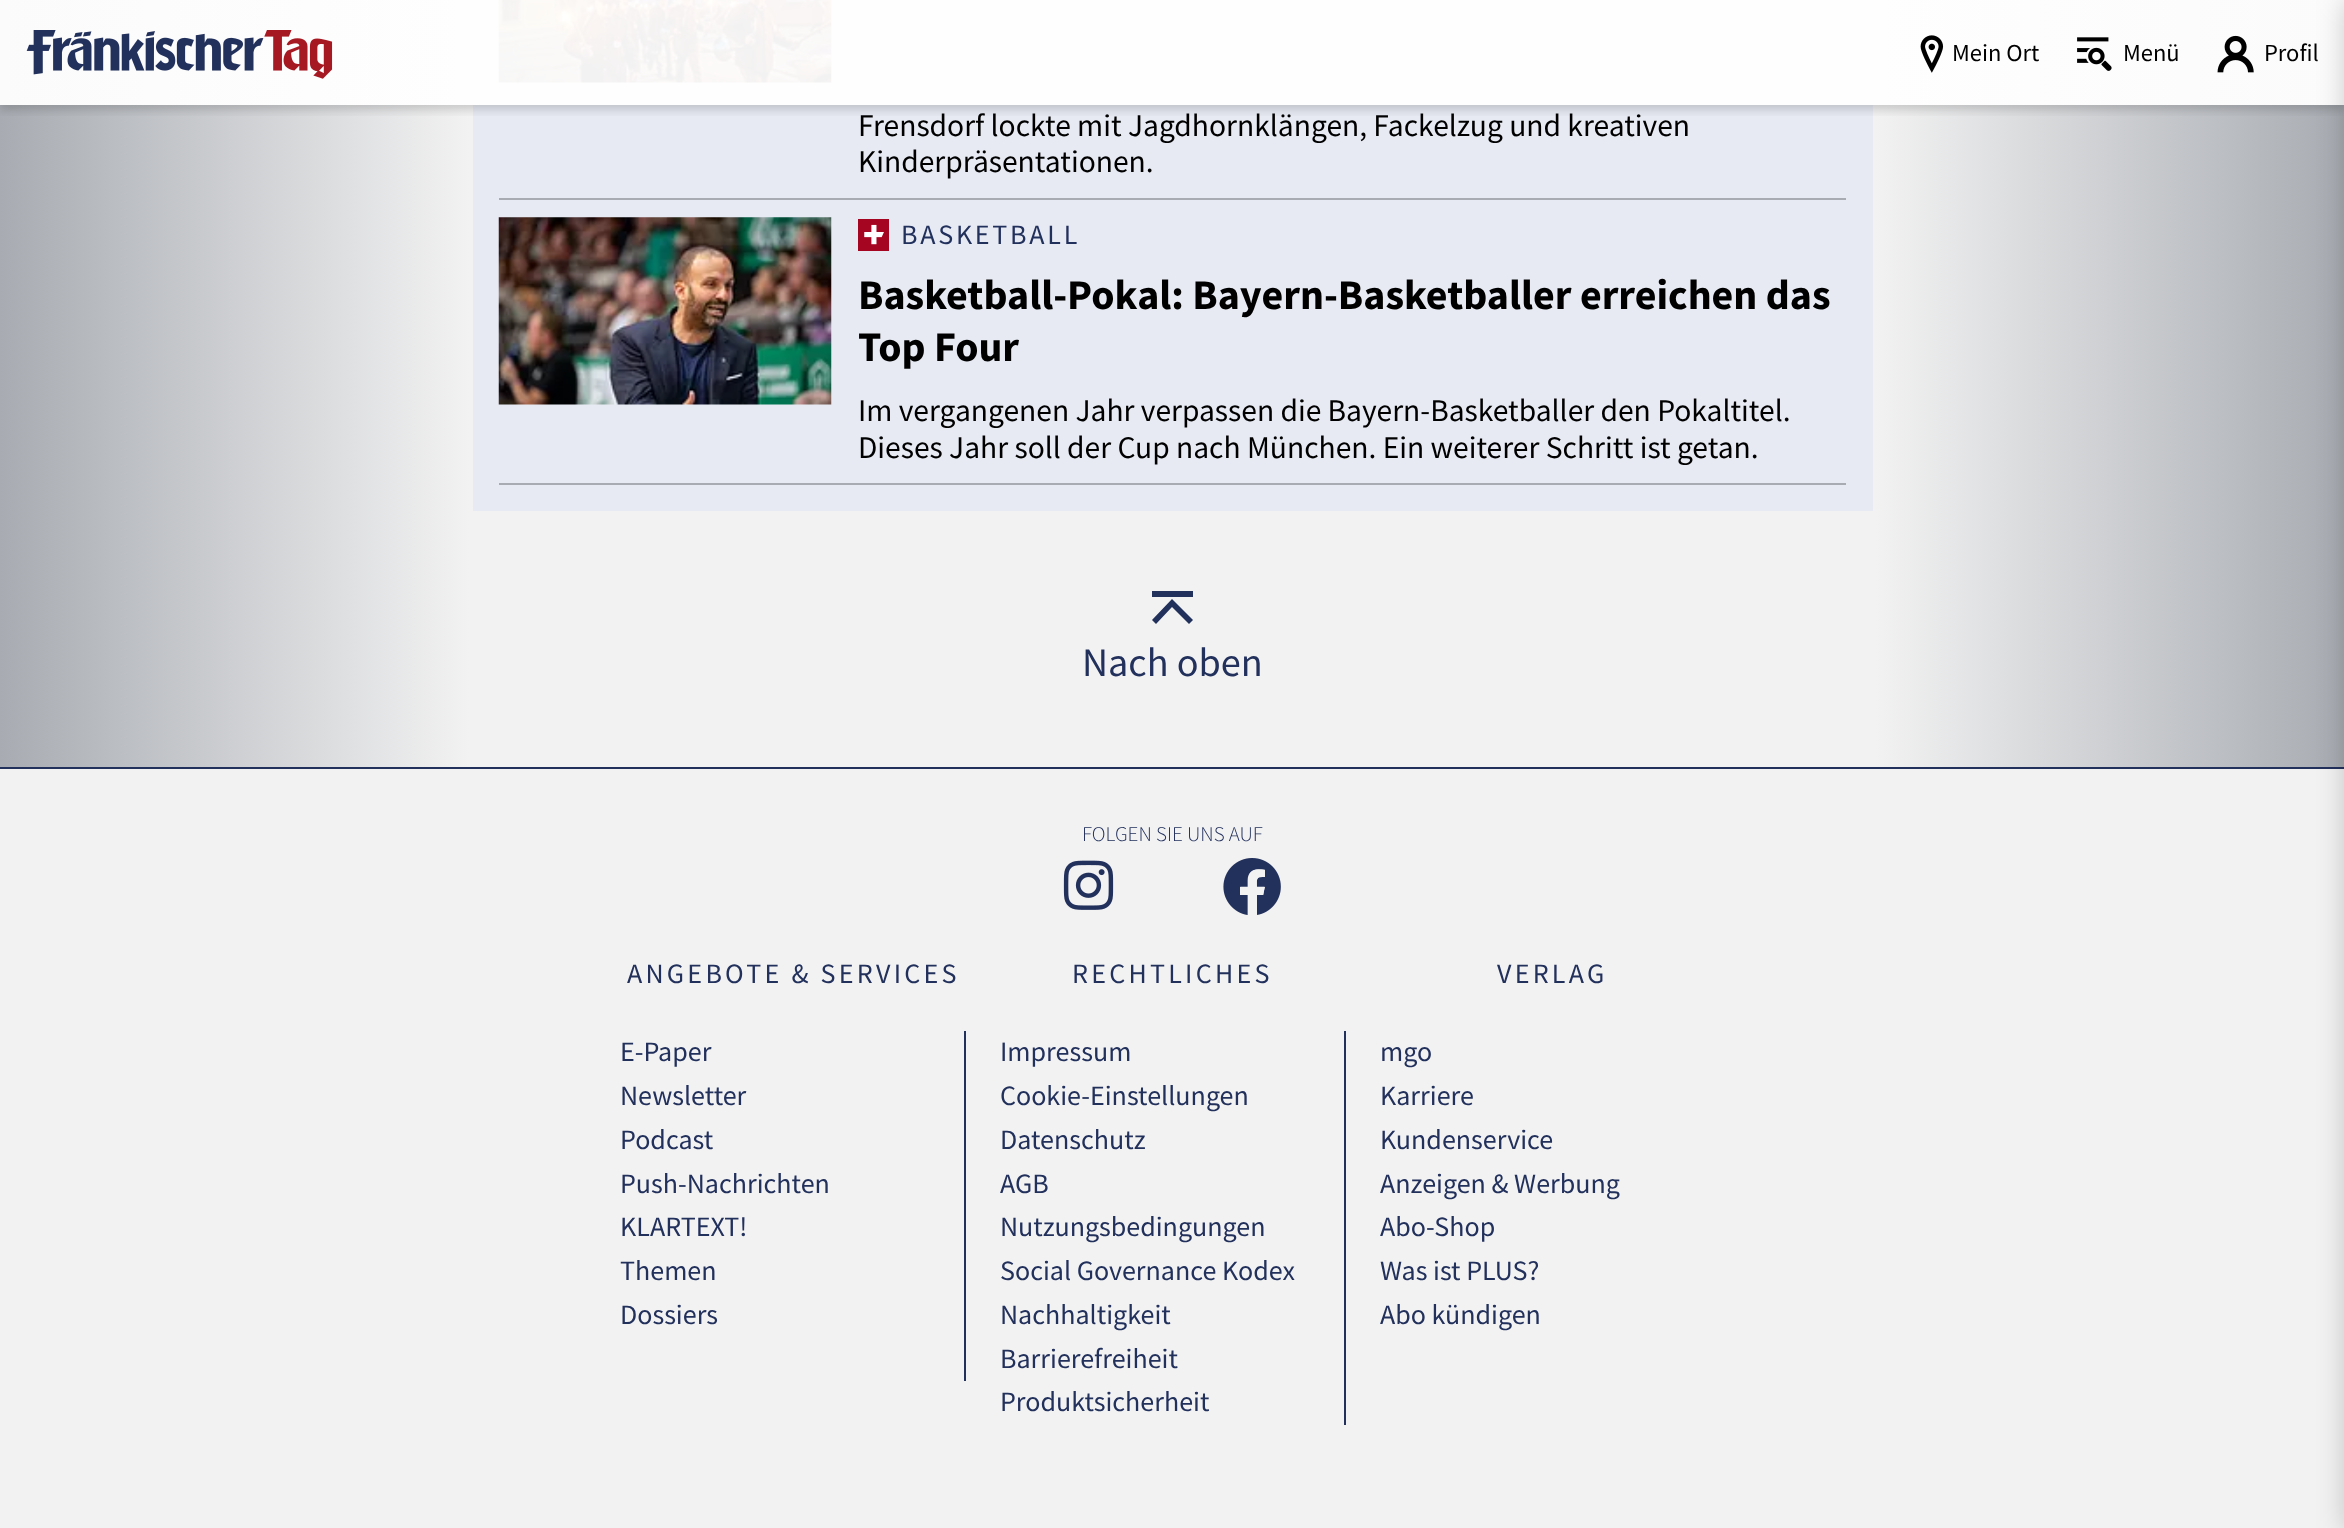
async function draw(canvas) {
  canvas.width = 2344
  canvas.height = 1528
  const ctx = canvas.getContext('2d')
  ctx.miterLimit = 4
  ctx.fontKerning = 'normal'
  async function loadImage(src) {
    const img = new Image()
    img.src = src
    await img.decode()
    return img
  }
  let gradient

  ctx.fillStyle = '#fff'
  ctx.fillRect(0, 0, 2344, 1528)
  gradient = ctx.createLinearGradient(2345, -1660, 0, -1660)
  gradient.addColorStop(0, '#a8acb2')
  gradient.addColorStop(0.2, '#f2f2f2')
  gradient.addColorStop(0.8, '#f2f2f2')
  gradient.addColorStop(1, '#a8acb2')
  ctx.fillStyle = gradient
  ctx.fillRect(0, 105, 2344, 662)
  gradient = ctx.createLinearGradient(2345, -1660, 0, -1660)
  gradient.addColorStop(0, '#fbfbfb')
  gradient.addColorStop(0.2, '#fefefe')
  gradient.addColorStop(0.8, '#fefefe')
  gradient.addColorStop(1, '#fbfbfb')
  ctx.fillStyle = gradient
  ctx.fillRect(0, 0, 2344, 105)
  ctx.fillStyle = '#e7eaf3'
  ctx.fillRect(473, 105, 1400, 406)
  ctx.drawImage(await loadImage('image4.png'), 498, 0, 334, 83)
  ctx.save()
  ctx.beginPath()
  ctx.rect(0, 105, 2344, 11)
  ctx.clip()
  ctx.fillStyle = '#00000029'
  ctx.filter = 'blur(5px)'
  ctx.beginPath()
  ctx.rect(0, 5, 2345, 105)
  ctx.fill()
  ctx.filter = 'none'
  ctx.restore()
  ctx.drawImage(await loadImage('image0.png'), 26, 30, 307, 49)
  ctx.drawImage(await loadImage('image1.png'), 1920, 35, 24, 38)
  ctx.font = '24.5px Source Sans Pro'
  ctx.fillStyle = '#000'
  ctx.fillText('Mein Ort', 1952, 61)
  ctx.drawImage(await loadImage('image2.png'), 2077, 37, 35, 34)
  ctx.fillText('Menü', 2123, 61)
  ctx.drawImage(await loadImage('image3.png'), 2217, 35, 37, 38)
  ctx.fillText('Profil', 2264, 61)
  ctx.fillStyle = '#f2f2f2'
  ctx.fillRect(0, 769, 2344, 759)
  ctx.fillStyle = '#22305c'
  ctx.fillRect(0, 767, 2344, 2)
  ctx.fillStyle = '#00000033'
  ctx.filter = 'blur(14px)'
  ctx.beginPath()
  ctx.rect(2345, 0, 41, 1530)
  ctx.fill()
  ctx.filter = 'none'
  ctx.fillStyle = '#a8acb2'
  ctx.fillRect(499, 198, 1347, 2)
  ctx.font = '31.5px Source Sans Pro'
  ctx.fillStyle = '#000'
  ctx.fillText('Frensdorf lockte mit Jagdhornklängen, Fackelzug und kreativen', 858, 136)
  ctx.fillText('Kinderpräsentationen.', 858, 172)
  ctx.fillStyle = '#a8acb2'
  ctx.fillRect(499, 483, 1347, 2)
  ctx.drawImage(await loadImage('image5.png'), 498, 217, 334, 188)
  ctx.fillStyle = '#a50520'
  ctx.fillRect(858, 219, 31, 32)
  ctx.drawImage(await loadImage('image6.png'), 864, 224, 20, 21)
  ctx.letterSpacing = '2.75px'
  ctx.font = '28px Source Sans Pro'
  ctx.fillStyle = '#22305c'
  ctx.fillText('BASKETBALL', 901, 244)
  ctx.letterSpacing = '0px'
  ctx.font = 'bold 42px Source Sans Pro'
  ctx.fillStyle = '#000'
  ctx.fillText('Basketball-Pokal: Bayern-Basketballer erreichen das', 858, 309)
  ctx.fillText('Top Four', 858, 361)
  ctx.font = '31.5px Source Sans Pro'
  ctx.fillText('Im vergangenen Jahr verpassen die Bayern-Basketballer den Pokaltitel.', 858, 421)
  ctx.fillText('Dieses Jahr soll der Cup nach München. Ein weiterer Schritt ist getan.', 858, 458)
  ctx.fillStyle = '#22305c'
  ctx.beginPath()
  ctx.moveTo(1172, 599)
  ctx.lineTo(1193, 620)
  ctx.lineTo(1189, 624)
  ctx.lineTo(1172, 607)
  ctx.lineTo(1156, 624)
  ctx.lineTo(1152, 620)
  ctx.closePath()
  ctx.moveTo(1193, 597)
  ctx.lineTo(1152, 597)
  ctx.lineTo(1152, 591)
  ctx.lineTo(1193, 591)
  ctx.closePath()
  ctx.fill()
  ctx.font = '40.25px Source Sans Pro'
  ctx.fillText('Nach oben', 1082, 676)
  ctx.font = '300 21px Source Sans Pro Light'
  ctx.fillText('FOLGEN SIE UNS AUF', 1082, 841)
  ctx.drawImage(await loadImage('image7.png'), 1063, 860, 51, 50)
  ctx.drawImage(await loadImage('image8.png'), 1223, 858, 58, 57)
  ctx.fillStyle = '#f2f2f2'
  ctx.beginPath()
  ctx.moveTo(1263, 895)
  ctx.lineTo(1265, 887)
  ctx.lineTo(1257, 887)
  ctx.bezierCurveTo(1257, 878, 1256, 877, 1265, 877)
  ctx.lineTo(1265, 870)
  ctx.bezierCurveTo(1250, 868, 1248, 872, 1248, 887)
  ctx.lineTo(1240, 887)
  ctx.lineTo(1240, 895)
  ctx.lineTo(1248, 895)
  ctx.lineTo(1248, 915)
  ctx.bezierCurveTo(1251, 916, 1254, 916, 1257, 915)
  ctx.lineTo(1257, 895)
  ctx.closePath()
  ctx.fill()
  ctx.letterSpacing = '3.25px'
  ctx.font = '28px Source Sans Pro'
  ctx.fillStyle = '#22305c'
  ctx.fillText('ANGEBOTE & SERVICES', 627, 983)
  ctx.fillText('RECHTLICHES', 1072, 983)
  ctx.fillText('VERLAG', 1497, 983)
  ctx.fillRect(964, 1031, 2, 350)
  ctx.letterSpacing = '0px'
  ctx.fillText('E-Paper', 620, 1061)
  ctx.fillRect(1344, 1031, 2, 394)
  ctx.fillText('Impressum', 1000, 1061)
  ctx.fillText('mgo', 1380, 1061)
  ctx.fillText('Newsletter', 620, 1105)
  ctx.fillText('Cookie-Einstellungen', 1000, 1105)
  ctx.fillText('Karriere', 1380, 1105)
  ctx.fillText('Podcast', 620, 1149)
  ctx.fillText('Datenschutz', 1000, 1149)
  ctx.fillText('Kundenservice', 1380, 1149)
  ctx.fillText('Push-Nachrichten', 620, 1193)
  ctx.fillText('AGB', 1000, 1193)
  ctx.fillText('Anzeigen & Werbung', 1380, 1193)
  ctx.fillText('KLARTEXT!', 620, 1236)
  ctx.fillText('Nutzungsbedingungen', 1000, 1236)
  ctx.fillText('Abo-Shop', 1380, 1236)
  ctx.fillText('Themen', 620, 1280)
  ctx.fillText('Social Governance Kodex', 1000, 1280)
  ctx.fillText('Was ist PLUS?', 1380, 1280)
  ctx.fillText('Dossiers', 620, 1324)
  ctx.fillText('Nachhaltigkeit', 1000, 1324)
  ctx.fillText('Abo kündigen', 1380, 1324)
  ctx.fillText('Barrierefreiheit', 1000, 1368)
  ctx.fillText('Produktsicherheit', 1000, 1411)
}

draw(document.querySelector('canvas'))
